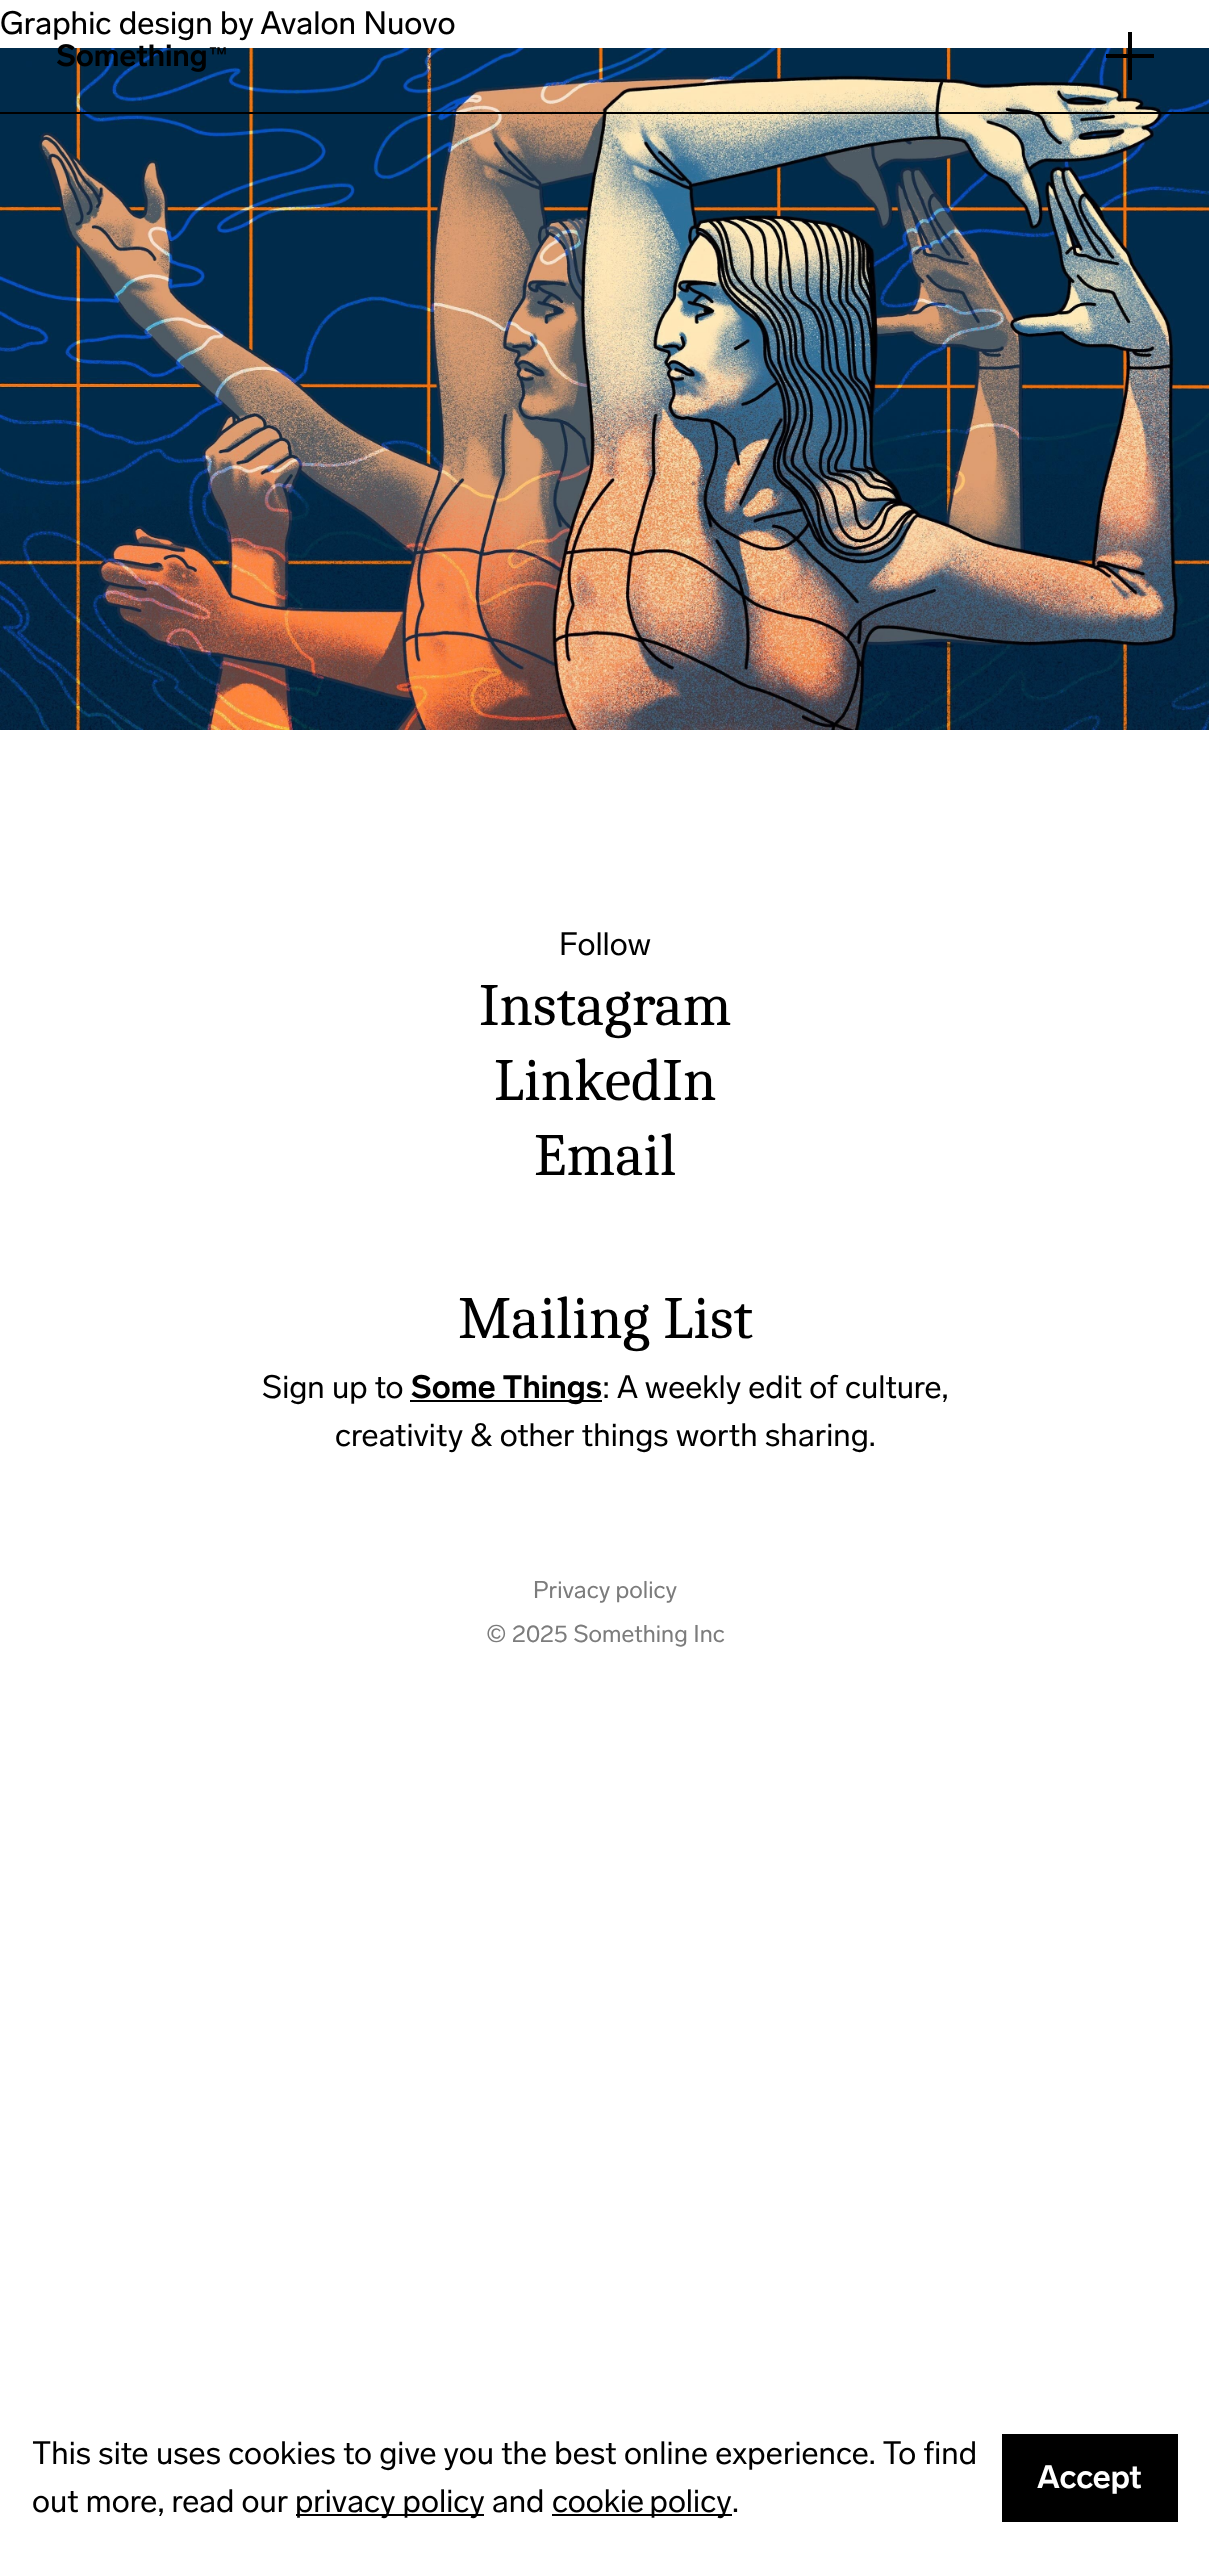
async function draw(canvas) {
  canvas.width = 1209
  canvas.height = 2558
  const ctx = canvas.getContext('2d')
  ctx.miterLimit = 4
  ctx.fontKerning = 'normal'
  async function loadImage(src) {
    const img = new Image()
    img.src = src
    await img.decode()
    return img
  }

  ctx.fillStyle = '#fff'
  ctx.fillRect(0, 0, 1209, 2558)
  ctx.font = '32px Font'
  ctx.fillStyle = '#000'
  ctx.fillText('Graphic design by Avalon Nuovo', 0, 34)
  ctx.drawImage(await loadImage('image1.png'), 0, 48, 1209, 682)
  ctx.fillRect(0, 112, 1209, 2)
  ctx.drawImage(await loadImage('image0.png'), 57, 44, 169, 28)
  ctx.fillRect(1106, 54, 48, 4)
  ctx.fillRect(1128, 32, 4, 48)
  ctx.font = '32px "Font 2"'
  ctx.fillText('Follow', 559, 955)
  ctx.font = '60px Caladea'
  ctx.fillText('Instagram', 479, 1025)
  ctx.fillText('LinkedIn', 494, 1100)
  ctx.fillText('Email', 534, 1175)
  ctx.fillText('Mailing List', 458, 1338)
  ctx.font = '32px "Font 2"'
  ctx.fillText('Sign up to', 262, 1398)
  ctx.fillRect(410, 1400, 192, 2)
  ctx.font = 'bold 32px Font'
  ctx.fillText('Some Things', 411, 1398)
  ctx.font = '32px "Font 2"'
  ctx.fillText(': A weekly edit of culture,', 602, 1398)
  ctx.fillText('creativity & other things worth sharing.', 335, 1446)
  ctx.font = '24px "Font 2"'
  ctx.fillStyle = '#7c7c7c'
  ctx.fillText('Privacy policy', 533, 1598)
  ctx.fillText('© 2025 Something Inc', 486, 1642)
  ctx.font = '32px "Font 2"'
  ctx.fillStyle = '#000'
  ctx.fillText('This site uses cookies to give you the best online experience. To find', 32, 2464)
  ctx.fillText('out more, read our', 32, 2512)
  ctx.fillRect(296, 2514, 188, 2)
  ctx.fillText('privacy policy and', 295, 2512)
  ctx.fillRect(552, 2514, 180, 2)
  ctx.wordSpacing = '-2px'
  ctx.fillText('cookie policy', 552, 2512)
  ctx.wordSpacing = '0px'
  ctx.fillText('.', 732, 2512)
  ctx.fillRect(1002, 2434, 176, 88)
  ctx.font = 'bold 32px Font'
  ctx.fillStyle = '#fff'
  ctx.fillText('Accept', 1037, 2488)
}

draw(document.querySelector('canvas'))
